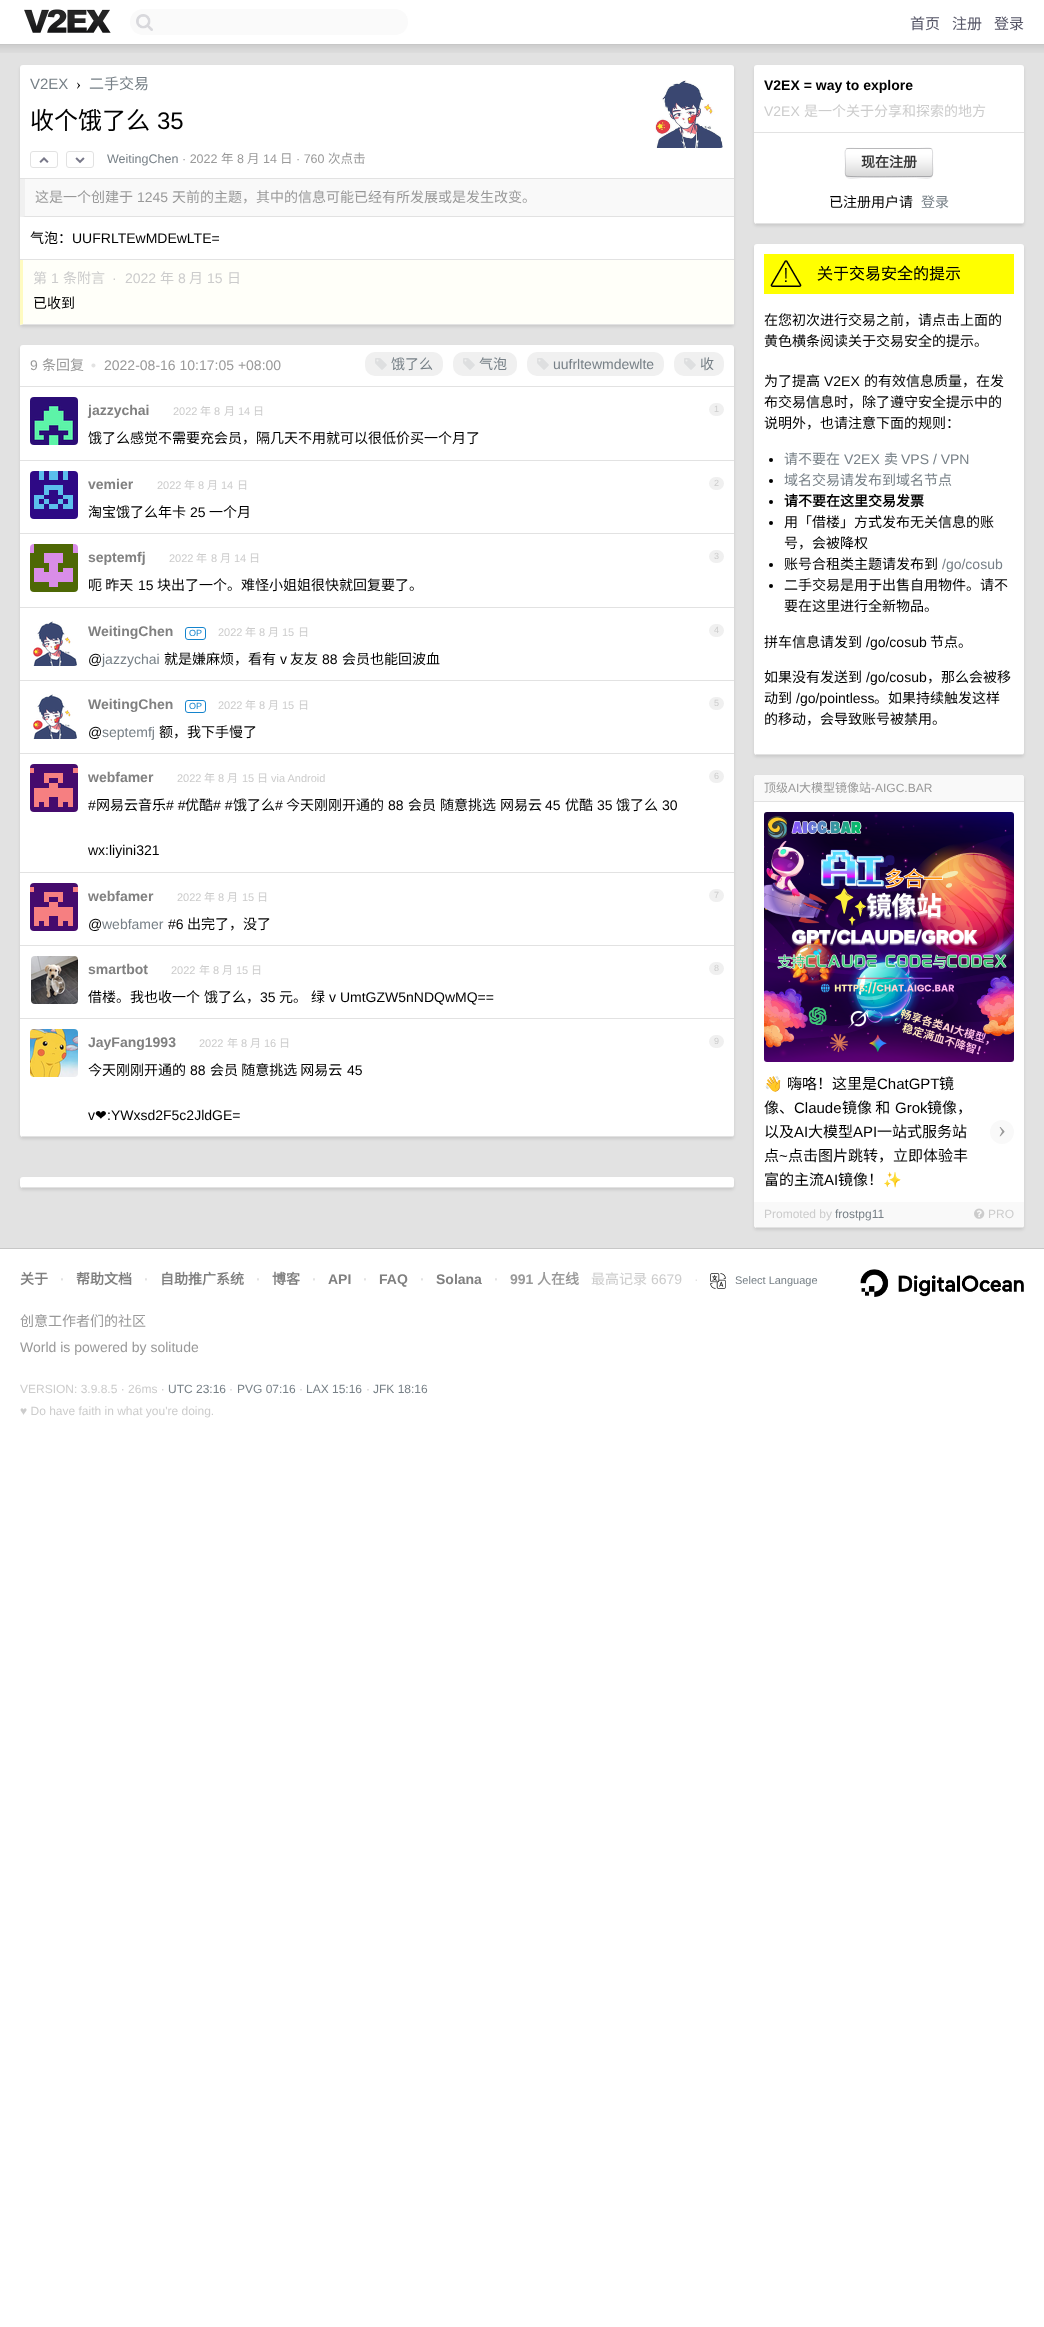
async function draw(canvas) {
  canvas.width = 1044
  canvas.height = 2327
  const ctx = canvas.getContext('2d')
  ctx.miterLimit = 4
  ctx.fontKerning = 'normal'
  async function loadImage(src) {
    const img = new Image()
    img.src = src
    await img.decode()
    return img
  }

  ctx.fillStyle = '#fff'
  ctx.fillRect(0, 0, 1044, 2327)
  ctx.fillStyle = '#c7c7c7'
  ctx.fillRect(0, 44, 1044, 1)
  ctx.drawImage(await loadImage('image0.png'), 24, 9, 87, 24)
  ctx.fillStyle = '#fafafa'
  ctx.beginPath()
  ctx.roundRect(130, 9, 278, 26, 13)
  ctx.fill()
  ctx.drawImage(await loadImage('image1.png'), 136, 14, 17, 17)
  ctx.font = '15px Noto Sans CJK SC'
  ctx.fillStyle = '#556'
  ctx.fillText('首页', 910, 29)
  ctx.fillText('注册', 952, 29)
  ctx.fillText('登录', 994, 29)
  ctx.fillStyle = '#e2e2e2'
  ctx.fillRect(0, 45, 1044, 1203)
  ctx.drawImage(await loadImage('image2.png'), 0, 45, 1044, 8)
  ctx.fillStyle = '#0000001a'
  ctx.filter = 'blur(1.5px)'
  ctx.beginPath()
  ctx.roundRect(20, 67, 714, 260, 3)
  ctx.fill()
  ctx.filter = 'none'
  ctx.fillStyle = '#fff'
  ctx.beginPath()
  ctx.roundRect(20, 65, 714, 260, 3)
  ctx.fill()
  ctx.fillStyle = '#e2e2e2'
  ctx.fillRect(20, 178, 714, 1)
  ctx.font = '15px Liberation Sans'
  ctx.fillStyle = '#778087'
  ctx.fillText('V2EX', 30, 89)
  ctx.font = '15px Liberation Serif'
  ctx.fillStyle = '#000'
  ctx.fillText('›', 76, 89)
  ctx.font = '15px Noto Sans CJK SC'
  ctx.fillStyle = '#778087'
  ctx.fillText('二手交易', 89, 89)
  ctx.drawImage(await loadImage('image3.png'), 655, 80, 68, 68)
  ctx.font = '24px Noto Sans CJK SC'
  ctx.fillStyle = '#000'
  ctx.fillText('收个饿了么', 30, 129)
  ctx.font = '24px Liberation Sans'
  ctx.fillText('35', 157, 129)
  ctx.beginPath()
  ctx.roundRect(30.5, 151.5, 27, 16, 2.5)
  ctx.strokeStyle = '#e2e2e2'
  ctx.stroke()
  ctx.drawImage(await loadImage('image4.png'), 39, 157, 10, 6)
  ctx.beginPath()
  ctx.roundRect(66.5, 151.5, 27, 16, 2.5)
  ctx.stroke()
  ctx.drawImage(await loadImage('image5.png'), 75, 157, 10, 7)
  ctx.font = '12.5px Liberation Sans'
  ctx.fillStyle = '#778087'
  ctx.fillText('WeitingChen', 107, 163)
  ctx.fillStyle = '#999'
  ctx.fillText('· 2022', 182, 163)
  ctx.font = '12.5px Noto Sans CJK SC'
  ctx.fillText('年', 221, 163)
  ctx.font = '12.5px Liberation Sans'
  ctx.fillText('8', 237, 163)
  ctx.font = '12.5px Noto Sans CJK SC'
  ctx.fillText('月', 247, 163)
  ctx.font = '12.5px Liberation Sans'
  ctx.fillText('14', 263, 163)
  ctx.font = '12.5px Noto Sans CJK SC'
  ctx.fillText('日', 280, 163)
  ctx.font = '12.5px Liberation Sans'
  ctx.fillText('· 760', 296, 163)
  ctx.font = '12.5px Noto Sans CJK SC'
  ctx.fillText('次点击', 328, 163)
  ctx.fillStyle = '#f9f9f9'
  ctx.fillRect(20, 179, 714, 38)
  ctx.fillStyle = '#e2e2e2'
  ctx.beginPath()
  ctx.moveTo(734, 217)
  ctx.lineTo(20, 217)
  ctx.lineTo(25, 216)
  ctx.lineTo(734, 216)
  ctx.closePath()
  ctx.fill()
  ctx.fillStyle = '#f0f0f0'
  ctx.beginPath()
  ctx.moveTo(20, 217)
  ctx.lineTo(20, 179)
  ctx.lineTo(25, 179)
  ctx.lineTo(25, 216)
  ctx.closePath()
  ctx.fill()
  ctx.font = '14px Noto Sans CJK SC'
  ctx.fillStyle = '#999'
  ctx.fillText('这是一个创建于', 35, 202)
  ctx.font = '14px Liberation Sans'
  ctx.fillText('1245', 137, 202)
  ctx.font = '14px Noto Sans CJK SC'
  ctx.fillText('天前的主题，其中的信息可能已经有所发展或是发生改变。', 172, 202)
  ctx.fillStyle = '#e2e2e2'
  ctx.fillRect(20, 259, 714, 1)
  ctx.fillStyle = '#000'
  ctx.fillText('气泡：', 30, 243)
  ctx.font = '14px Liberation Sans'
  ctx.fillText('UUFRLTEwMDEwLTE=', 72, 243)
  ctx.fillStyle = '#fffff9'
  ctx.fillRect(20, 260, 714, 65)
  ctx.fillStyle = '#e2e2e2'
  ctx.beginPath()
  ctx.moveTo(734, 325)
  ctx.lineTo(20, 325)
  ctx.lineTo(23, 324)
  ctx.lineTo(734, 324)
  ctx.closePath()
  ctx.fill()
  ctx.fillStyle = '#fffbc1'
  ctx.beginPath()
  ctx.moveTo(20, 325)
  ctx.lineTo(20, 260)
  ctx.lineTo(23, 260)
  ctx.lineTo(23, 324)
  ctx.closePath()
  ctx.fill()
  ctx.font = '14px Noto Sans CJK SC'
  ctx.fillStyle = '#ccc'
  ctx.fillText('第', 33, 283)
  ctx.font = '14px Liberation Sans'
  ctx.fillText('1', 51, 283)
  ctx.font = '14px Noto Sans CJK SC'
  ctx.fillText('条附言', 63, 283)
  ctx.font = '14px Liberation Sans'
  ctx.fillText('·', 112, 283)
  ctx.fillText('2022', 125, 283)
  ctx.font = '14px Noto Sans CJK SC'
  ctx.fillText('年', 160, 283)
  ctx.font = '14px Liberation Sans'
  ctx.fillText('8', 178, 283)
  ctx.font = '14px Noto Sans CJK SC'
  ctx.fillText('月', 189, 283)
  ctx.font = '14px Liberation Sans'
  ctx.fillText('15', 207, 283)
  ctx.font = '14px Noto Sans CJK SC'
  ctx.fillText('日', 227, 283)
  ctx.fillStyle = '#000'
  ctx.fillText('已收到', 33, 308)
  ctx.fillStyle = '#0000001a'
  ctx.filter = 'blur(1.5px)'
  ctx.beginPath()
  ctx.roundRect(20, 347, 714, 792, 3)
  ctx.fill()
  ctx.filter = 'none'
  ctx.fillStyle = '#fff'
  ctx.beginPath()
  ctx.roundRect(20, 345, 714, 792, 3)
  ctx.fill()
  ctx.fillStyle = '#e2e2e2'
  ctx.fillRect(22, 1136, 711, 1)
  ctx.fillRect(20, 386, 714, 1)
  ctx.font = '14px Liberation Sans'
  ctx.fillStyle = '#999'
  ctx.fillText('9', 30, 370)
  ctx.font = '14px Noto Sans CJK SC'
  ctx.fillText('条回复', 42, 370)
  ctx.font = 'bold 14px Liberation Sans'
  ctx.fillStyle = '#e2e2e2'
  ctx.fillText('•', 91, 370)
  ctx.font = '14px Liberation Sans'
  ctx.fillStyle = '#999'
  ctx.fillText('2022-08-16 10:17:05 +08:00', 104, 370)
  ctx.fillStyle = '#f0f0f0'
  ctx.beginPath()
  ctx.roundRect(365, 352, 78, 24, 10)
  ctx.fill()
  ctx.drawImage(await loadImage('image6.png'), 375, 358, 12, 12)
  ctx.font = '14px Noto Sans CJK SC'
  ctx.fillStyle = '#778087'
  ctx.fillText('饿了么', 391, 369)
  ctx.fillStyle = '#f0f0f0'
  ctx.beginPath()
  ctx.roundRect(453, 352, 64, 24, 10)
  ctx.fill()
  ctx.drawImage(await loadImage('image6.png'), 463, 358, 12, 12)
  ctx.fillStyle = '#778087'
  ctx.fillText('气泡', 479, 369)
  ctx.fillStyle = '#f0f0f0'
  ctx.beginPath()
  ctx.roundRect(527, 352, 137, 24, 10)
  ctx.fill()
  ctx.drawImage(await loadImage('image6.png'), 537, 358, 12, 12)
  ctx.font = '14px Liberation Sans'
  ctx.fillStyle = '#778087'
  ctx.fillText('uufrltewmdewlte', 553, 369)
  ctx.fillStyle = '#f0f0f0'
  ctx.beginPath()
  ctx.roundRect(674, 352, 50, 24, 10)
  ctx.fill()
  ctx.drawImage(await loadImage('image6.png'), 684, 358, 12, 12)
  ctx.font = '14px Noto Sans CJK SC'
  ctx.fillStyle = '#778087'
  ctx.fillText('收', 700, 369)
  ctx.fillStyle = '#e2e2e2'
  ctx.fillRect(20, 460, 714, 1)
  ctx.drawImage(await loadImage('image7.png'), 30, 397, 48, 48)
  ctx.font = 'bold 14px Liberation Sans'
  ctx.fillStyle = '#808080'
  ctx.fillText('jazzychai', 88, 415)
  ctx.font = '11px Liberation Sans'
  ctx.fillStyle = '#ccc'
  ctx.fillText('2022', 173, 415)
  ctx.font = '11px Noto Sans CJK SC'
  ctx.fillText('年', 200, 415)
  ctx.font = '11px Liberation Sans'
  ctx.fillText('8', 214, 415)
  ctx.font = '11px Noto Sans CJK SC'
  ctx.fillText('月', 224, 415)
  ctx.font = '11px Liberation Sans'
  ctx.fillText('14', 238, 415)
  ctx.font = '11px Noto Sans CJK SC'
  ctx.fillText('日', 253, 415)
  ctx.fillStyle = '#f0f0f0'
  ctx.beginPath()
  ctx.roundRect(709, 403, 15, 13, 6.5)
  ctx.fill()
  ctx.font = '9px Liberation Sans'
  ctx.fillStyle = '#ccc'
  ctx.fillText('1', 714, 412)
  ctx.font = '14px Noto Sans CJK SC'
  ctx.fillStyle = '#000'
  ctx.fillText('饿了么感觉不需要充会员，隔几天不用就可以很低价买一个月了', 88, 443)
  ctx.fillStyle = '#e2e2e2'
  ctx.fillRect(20, 533, 714, 1)
  ctx.drawImage(await loadImage('image8.png'), 30, 471, 48, 48)
  ctx.font = 'bold 14px Liberation Sans'
  ctx.fillStyle = '#808080'
  ctx.fillText('vemier', 88, 489)
  ctx.font = '11px Liberation Sans'
  ctx.fillStyle = '#ccc'
  ctx.fillText('2022', 157, 489)
  ctx.font = '11px Noto Sans CJK SC'
  ctx.fillText('年', 184, 489)
  ctx.font = '11px Liberation Sans'
  ctx.fillText('8', 198, 489)
  ctx.font = '11px Noto Sans CJK SC'
  ctx.fillText('月', 207, 489)
  ctx.font = '11px Liberation Sans'
  ctx.fillText('14', 221, 489)
  ctx.font = '11px Noto Sans CJK SC'
  ctx.fillText('日', 237, 489)
  ctx.fillStyle = '#f0f0f0'
  ctx.beginPath()
  ctx.roundRect(709, 477, 15, 13, 6.5)
  ctx.fill()
  ctx.font = '9px Liberation Sans'
  ctx.fillStyle = '#ccc'
  ctx.fillText('2', 714, 486)
  ctx.font = '14px Noto Sans CJK SC'
  ctx.fillStyle = '#000'
  ctx.fillText('淘宝饿了么年卡', 88, 517)
  ctx.font = '14px Liberation Sans'
  ctx.fillText('25', 190, 517)
  ctx.font = '14px Noto Sans CJK SC'
  ctx.fillText('一个月', 209, 517)
  ctx.fillStyle = '#e2e2e2'
  ctx.fillRect(20, 607, 714, 1)
  ctx.drawImage(await loadImage('image9.png'), 30, 544, 48, 48)
  ctx.font = 'bold 14px Liberation Sans'
  ctx.fillStyle = '#808080'
  ctx.fillText('septemfj', 88, 562)
  ctx.font = '11px Liberation Sans'
  ctx.fillStyle = '#ccc'
  ctx.fillText('2022', 169, 562)
  ctx.font = '11px Noto Sans CJK SC'
  ctx.fillText('年', 196, 562)
  ctx.font = '11px Liberation Sans'
  ctx.fillText('8', 211, 562)
  ctx.font = '11px Noto Sans CJK SC'
  ctx.fillText('月', 220, 562)
  ctx.font = '11px Liberation Sans'
  ctx.fillText('14', 234, 562)
  ctx.font = '11px Noto Sans CJK SC'
  ctx.fillText('日', 249, 562)
  ctx.fillStyle = '#f0f0f0'
  ctx.beginPath()
  ctx.roundRect(709, 550, 15, 13, 6.5)
  ctx.fill()
  ctx.font = '9px Liberation Sans'
  ctx.fillStyle = '#ccc'
  ctx.fillText('3', 714, 559)
  ctx.font = '14px Noto Sans CJK SC'
  ctx.fillStyle = '#000'
  ctx.fillText('呃 昨天', 88, 590)
  ctx.font = '14px Liberation Sans'
  ctx.fillText('15', 138, 590)
  ctx.font = '14px Noto Sans CJK SC'
  ctx.fillText('块出了一个。难怪小姐姐很快就回复要了。', 157, 590)
  ctx.fillStyle = '#e2e2e2'
  ctx.fillRect(20, 680, 714, 1)
  ctx.drawImage(await loadImage('image10.png'), 33, 621, 44, 45)
  ctx.font = 'bold 14px Liberation Sans'
  ctx.fillStyle = '#808080'
  ctx.fillText('WeitingChen', 88, 636)
  ctx.beginPath()
  ctx.roundRect(185.5, 627.5, 20, 12, 2.5)
  ctx.strokeStyle = '#1484cd'
  ctx.stroke()
  ctx.font = '9px Liberation Sans'
  ctx.fillStyle = '#1484cd'
  ctx.fillText('OP', 189, 636)
  ctx.font = '11px Liberation Sans'
  ctx.fillStyle = '#ccc'
  ctx.fillText('2022', 218, 636)
  ctx.font = '11px Noto Sans CJK SC'
  ctx.fillText('年', 245, 636)
  ctx.font = '11px Liberation Sans'
  ctx.fillText('8', 259, 636)
  ctx.font = '11px Noto Sans CJK SC'
  ctx.fillText('月', 268, 636)
  ctx.font = '11px Liberation Sans'
  ctx.fillText('15', 282, 636)
  ctx.font = '11px Noto Sans CJK SC'
  ctx.fillText('日', 298, 636)
  ctx.fillStyle = '#f0f0f0'
  ctx.beginPath()
  ctx.roundRect(709, 624, 15, 13, 6.5)
  ctx.fill()
  ctx.font = '9px Liberation Sans'
  ctx.fillStyle = '#ccc'
  ctx.fillText('4', 714, 633)
  ctx.font = '14px Liberation Sans'
  ctx.fillStyle = '#000'
  ctx.fillText('@', 88, 664)
  ctx.fillStyle = '#778087'
  ctx.fillText('jazzychai', 102, 664)
  ctx.font = '14px Noto Sans CJK SC'
  ctx.fillStyle = '#000'
  ctx.fillText('就是嫌麻烦，看有', 164, 664)
  ctx.font = '14px Liberation Sans'
  ctx.fillText('v', 280, 664)
  ctx.font = '14px Noto Sans CJK SC'
  ctx.fillText('友友', 290, 664)
  ctx.font = '14px Liberation Sans'
  ctx.fillText('88', 322, 664)
  ctx.font = '14px Noto Sans CJK SC'
  ctx.fillText('会员也能回波血', 342, 664)
  ctx.fillStyle = '#e2e2e2'
  ctx.fillRect(20, 753, 714, 1)
  ctx.drawImage(await loadImage('image10.png'), 33, 694, 44, 45)
  ctx.font = 'bold 14px Liberation Sans'
  ctx.fillStyle = '#808080'
  ctx.fillText('WeitingChen', 88, 709)
  ctx.beginPath()
  ctx.roundRect(185.5, 700.5, 20, 12, 2.5)
  ctx.stroke()
  ctx.font = '9px Liberation Sans'
  ctx.fillStyle = '#1484cd'
  ctx.fillText('OP', 189, 709)
  ctx.font = '11px Liberation Sans'
  ctx.fillStyle = '#ccc'
  ctx.fillText('2022', 218, 709)
  ctx.font = '11px Noto Sans CJK SC'
  ctx.fillText('年', 245, 709)
  ctx.font = '11px Liberation Sans'
  ctx.fillText('8', 259, 709)
  ctx.font = '11px Noto Sans CJK SC'
  ctx.fillText('月', 268, 709)
  ctx.font = '11px Liberation Sans'
  ctx.fillText('15', 282, 709)
  ctx.font = '11px Noto Sans CJK SC'
  ctx.fillText('日', 298, 709)
  ctx.fillStyle = '#f0f0f0'
  ctx.beginPath()
  ctx.roundRect(709, 697, 15, 13, 6.5)
  ctx.fill()
  ctx.font = '9px Liberation Sans'
  ctx.fillStyle = '#ccc'
  ctx.fillText('5', 714, 706)
  ctx.font = '14px Liberation Sans'
  ctx.fillStyle = '#000'
  ctx.fillText('@', 88, 737)
  ctx.fillStyle = '#778087'
  ctx.fillText('septemfj', 102, 737)
  ctx.font = '14px Noto Sans CJK SC'
  ctx.fillStyle = '#000'
  ctx.fillText('额，我下手慢了', 159, 737)
  ctx.fillStyle = '#e2e2e2'
  ctx.fillRect(20, 872, 714, 1)
  ctx.drawImage(await loadImage('image11.png'), 30, 764, 48, 48)
  ctx.font = 'bold 14px Liberation Sans'
  ctx.fillStyle = '#808080'
  ctx.fillText('webfamer', 88, 782)
  ctx.font = '11px Liberation Sans'
  ctx.fillStyle = '#ccc'
  ctx.fillText('2022', 177, 782)
  ctx.font = '11px Noto Sans CJK SC'
  ctx.fillText('年', 204, 782)
  ctx.font = '11px Liberation Sans'
  ctx.fillText('8', 218, 782)
  ctx.font = '11px Noto Sans CJK SC'
  ctx.fillText('月', 227, 782)
  ctx.font = '11px Liberation Sans'
  ctx.fillText('15', 242, 782)
  ctx.font = '11px Noto Sans CJK SC'
  ctx.fillText('日', 257, 782)
  ctx.font = '11px Liberation Sans'
  ctx.fillText('via Android', 271, 782)
  ctx.fillStyle = '#f0f0f0'
  ctx.beginPath()
  ctx.roundRect(709, 770, 15, 13, 6.5)
  ctx.fill()
  ctx.font = '9px Liberation Sans'
  ctx.fillStyle = '#ccc'
  ctx.fillText('6', 714, 779)
  ctx.font = '14px Liberation Sans'
  ctx.fillStyle = '#000'
  ctx.fillText('#', 88, 810)
  ctx.font = '14px Noto Sans CJK SC'
  ctx.fillText('网易云音乐', 96, 810)
  ctx.font = '14px Liberation Sans'
  ctx.fillText('# #', 166, 810)
  ctx.font = '14px Noto Sans CJK SC'
  ctx.fillText('优酷', 185, 810)
  ctx.font = '14px Liberation Sans'
  ctx.fillText('# #', 213, 810)
  ctx.font = '14px Noto Sans CJK SC'
  ctx.fillText('饿了么', 233, 810)
  ctx.font = '14px Liberation Sans'
  ctx.fillText('#', 275, 810)
  ctx.font = '14px Noto Sans CJK SC'
  ctx.fillText('今天刚刚开通的', 286, 810)
  ctx.font = '14px Liberation Sans'
  ctx.fillText('88', 388, 810)
  ctx.font = '14px Noto Sans CJK SC'
  ctx.fillText('会员', 408, 810)
  ctx.fillText('随意挑选', 440, 810)
  ctx.fillText('网易云', 500, 810)
  ctx.font = '14px Liberation Sans'
  ctx.fillText('45', 545, 810)
  ctx.font = '14px Noto Sans CJK SC'
  ctx.fillText('优酷', 565, 810)
  ctx.font = '14px Liberation Sans'
  ctx.fillText('35', 597, 810)
  ctx.font = '14px Noto Sans CJK SC'
  ctx.fillText('饿了么', 616, 810)
  ctx.font = '14px Liberation Sans'
  ctx.fillText('30', 662, 810)
  ctx.fillText('wx:liyini321', 88, 855)
  ctx.fillStyle = '#e2e2e2'
  ctx.fillRect(20, 945, 714, 1)
  ctx.drawImage(await loadImage('image11.png'), 30, 883, 48, 48)
  ctx.font = 'bold 14px Liberation Sans'
  ctx.fillStyle = '#808080'
  ctx.fillText('webfamer', 88, 901)
  ctx.font = '11px Liberation Sans'
  ctx.fillStyle = '#ccc'
  ctx.fillText('2022', 177, 901)
  ctx.font = '11px Noto Sans CJK SC'
  ctx.fillText('年', 204, 901)
  ctx.font = '11px Liberation Sans'
  ctx.fillText('8', 218, 901)
  ctx.font = '11px Noto Sans CJK SC'
  ctx.fillText('月', 227, 901)
  ctx.font = '11px Liberation Sans'
  ctx.fillText('15', 242, 901)
  ctx.font = '11px Noto Sans CJK SC'
  ctx.fillText('日', 257, 901)
  ctx.fillStyle = '#f0f0f0'
  ctx.beginPath()
  ctx.roundRect(709, 889, 15, 13, 6.5)
  ctx.fill()
  ctx.font = '9px Liberation Sans'
  ctx.fillStyle = '#ccc'
  ctx.fillText('7', 714, 898)
  ctx.font = '14px Liberation Sans'
  ctx.fillStyle = '#000'
  ctx.fillText('@', 88, 929)
  ctx.fillStyle = '#778087'
  ctx.fillText('webfamer', 102, 929)
  ctx.fillStyle = '#000'
  ctx.fillText('#6', 168, 929)
  ctx.font = '14px Noto Sans CJK SC'
  ctx.fillText('出完了，没了', 187, 929)
  ctx.fillStyle = '#e2e2e2'
  ctx.fillRect(20, 1018, 714, 1)
  ctx.drawImage(await loadImage('image12.png'), 31, 956, 47, 48)
  ctx.font = 'bold 14px Liberation Sans'
  ctx.fillStyle = '#808080'
  ctx.fillText('smartbot', 88, 974)
  ctx.font = '11px Liberation Sans'
  ctx.fillStyle = '#ccc'
  ctx.fillText('2022', 171, 974)
  ctx.font = '11px Noto Sans CJK SC'
  ctx.fillText('年', 199, 974)
  ctx.font = '11px Liberation Sans'
  ctx.fillText('8', 213, 974)
  ctx.font = '11px Noto Sans CJK SC'
  ctx.fillText('月', 222, 974)
  ctx.font = '11px Liberation Sans'
  ctx.fillText('15', 236, 974)
  ctx.font = '11px Noto Sans CJK SC'
  ctx.fillText('日', 251, 974)
  ctx.fillStyle = '#f0f0f0'
  ctx.beginPath()
  ctx.roundRect(709, 962, 15, 13, 6.5)
  ctx.fill()
  ctx.font = '9px Liberation Sans'
  ctx.fillStyle = '#ccc'
  ctx.fillText('8', 714, 971)
  ctx.font = '14px Noto Sans CJK SC'
  ctx.fillStyle = '#000'
  ctx.fillText('借楼。我也收一个', 88, 1002)
  ctx.fillText('饿了么，', 204, 1002)
  ctx.font = '14px Liberation Sans'
  ctx.fillText('35', 260, 1002)
  ctx.font = '14px Noto Sans CJK SC'
  ctx.fillText('元。', 279, 1002)
  ctx.fillText('绿', 311, 1002)
  ctx.font = '14px Liberation Sans'
  ctx.fillText('v UmtGZW5nNDQwMQ==', 329, 1002)
  ctx.drawImage(await loadImage('image13.png'), 30, 1029, 48, 48)
  ctx.font = 'bold 14px Liberation Sans'
  ctx.fillStyle = '#808080'
  ctx.fillText('JayFang1993', 88, 1047)
  ctx.font = '11px Liberation Sans'
  ctx.fillStyle = '#ccc'
  ctx.fillText('2022', 199, 1047)
  ctx.font = '11px Noto Sans CJK SC'
  ctx.fillText('年', 227, 1047)
  ctx.font = '11px Liberation Sans'
  ctx.fillText('8', 241, 1047)
  ctx.font = '11px Noto Sans CJK SC'
  ctx.fillText('月', 250, 1047)
  ctx.font = '11px Liberation Sans'
  ctx.fillText('16', 264, 1047)
  ctx.font = '11px Noto Sans CJK SC'
  ctx.fillText('日', 279, 1047)
  ctx.fillStyle = '#f0f0f0'
  ctx.beginPath()
  ctx.roundRect(709, 1035, 15, 13, 6.5)
  ctx.fill()
  ctx.font = '9px Liberation Sans'
  ctx.fillStyle = '#ccc'
  ctx.fillText('9', 714, 1044)
  ctx.font = '14px Noto Sans CJK SC'
  ctx.fillStyle = '#000'
  ctx.fillText('今天刚刚开通的', 88, 1075)
  ctx.font = '14px Liberation Sans'
  ctx.fillText('88', 190, 1075)
  ctx.font = '14px Noto Sans CJK SC'
  ctx.fillText('会员 随意挑选 网易云', 210, 1075)
  ctx.font = '14px Liberation Sans'
  ctx.fillText('45', 347, 1075)
  ctx.fillText('v', 88, 1120)
  ctx.font = '14px DejaVu Sans'
  ctx.fillText('❤', 95, 1120)
  ctx.font = '14px Liberation Sans'
  ctx.fillText(':YWxsd2F5c2JldGE=', 107, 1120)
  ctx.fillStyle = '#0000001a'
  ctx.filter = 'blur(1.5px)'
  ctx.beginPath()
  ctx.roundRect(20, 1179, 714, 11, 3)
  ctx.fill()
  ctx.filter = 'none'
  ctx.fillStyle = '#fff'
  ctx.beginPath()
  ctx.roundRect(20, 1177, 714, 11, 3)
  ctx.fill()
  ctx.fillStyle = '#e2e2e2'
  ctx.fillRect(22, 1187, 711, 1)
  ctx.fillStyle = '#0000001a'
  ctx.filter = 'blur(1.5px)'
  ctx.beginPath()
  ctx.roundRect(754, 67, 270, 159, 3)
  ctx.fill()
  ctx.filter = 'none'
  ctx.fillStyle = '#fff'
  ctx.beginPath()
  ctx.roundRect(754, 65, 270, 159, 3)
  ctx.fill()
  ctx.fillStyle = '#e2e2e2'
  ctx.fillRect(756, 223, 267, 1)
  ctx.fillRect(754, 132, 270, 1)
  ctx.font = 'bold 14px Liberation Sans'
  ctx.fillStyle = '#000'
  ctx.fillText('V2EX = way to explore', 764, 90)
  ctx.font = '14px Liberation Sans'
  ctx.fillStyle = '#ccc'
  ctx.fillText('V2EX', 764, 116)
  ctx.font = '14px Noto Sans CJK SC'
  ctx.fillText('是一个关于分享和探索的地方', 804, 116)
  ctx.fillStyle = '#ececed'
  ctx.beginPath()
  ctx.moveTo(845, 174)
  ctx.bezierCurveTo(845, 182, 858, 178, 862, 178)
  ctx.lineTo(916, 178)
  ctx.bezierCurveTo(920, 178, 933, 182, 933, 174)
  ctx.bezierCurveTo(933, 176, 932, 177, 930, 177)
  ctx.lineTo(848, 177)
  ctx.bezierCurveTo(846, 177, 845, 176, 845, 174)
  ctx.closePath()
  ctx.fill()
  ctx.fillStyle = '#fff'
  ctx.beginPath()
  ctx.roundRect(845, 148, 88, 29, 3)
  ctx.fill()
  ctx.drawImage(await loadImage('image14.png'), 845, 148, 88, 29)
  ctx.beginPath()
  ctx.moveTo(932, 176)
  ctx.lineTo(930, 176.5)
  ctx.lineTo(916.5, 176.5)
  ctx.bezierCurveTo(909, 176.5, 848.5, 177.5, 846.5, 176)
  ctx.lineTo(846, 176)
  ctx.strokeStyle = '#50505a59'
  ctx.stroke()
  ctx.beginPath()
  ctx.moveTo(846, 176)
  ctx.bezierCurveTo(844.5, 174, 845.5, 168.5, 845.5, 166.5)
  ctx.bezierCurveTo(845.5, 145.5, 841, 148.5, 861.5, 148.5)
  ctx.lineTo(916.5, 148.5)
  ctx.bezierCurveTo(935, 148.5, 932.5, 145, 932.5, 162.5)
  ctx.bezierCurveTo(932.5, 165, 933.5, 174, 932, 176)
  ctx.strokeStyle = '#50505a33'
  ctx.stroke()
  ctx.font = 'bold 14px Noto Sans CJK SC'
  ctx.fillStyle = '#333'
  ctx.fillText('现在注册', 861, 167)
  ctx.font = '14px Noto Sans CJK SC'
  ctx.fillStyle = '#000'
  ctx.fillText('已注册用户请', 829, 207)
  ctx.fillStyle = '#778087'
  ctx.fillText('登录', 921, 207)
  ctx.fillStyle = '#0000001a'
  ctx.filter = 'blur(1.5px)'
  ctx.beginPath()
  ctx.roundRect(754, 246, 270, 511, 3)
  ctx.fill()
  ctx.filter = 'none'
  ctx.fillStyle = '#fff'
  ctx.beginPath()
  ctx.roundRect(754, 244, 270, 511, 3)
  ctx.fill()
  ctx.fillStyle = '#e2e2e2'
  ctx.fillRect(756, 754, 267, 1)
  ctx.drawImage(await loadImage('image15.png'), 764, 254, 250, 40)
  ctx.fillStyle = '#000'
  ctx.fillText('在您初次进行交易之前，请点击上面的', 764, 325)
  ctx.fillText('黄色横条阅读关于交易安全的提示。', 764, 346)
  ctx.fillText('为了提高', 764, 386)
  ctx.font = '14px Liberation Sans'
  ctx.fillText('V2EX', 824, 386)
  ctx.font = '14px Noto Sans CJK SC'
  ctx.fillText('的有效信息质量，在发', 864, 386)
  ctx.fillText('布交易信息时，除了遵守安全提示中的', 764, 407)
  ctx.fillText('说明外，也请注意下面的规则：', 764, 428)
  ctx.beginPath()
  ctx.arc(771, 460, 2, 0, 2 * Math.PI)
  ctx.fill()
  ctx.fillStyle = '#778087'
  ctx.fillText('请不要在', 784, 464)
  ctx.font = '14px Liberation Sans'
  ctx.fillText('V2EX', 844, 464)
  ctx.font = '14px Noto Sans CJK SC'
  ctx.fillText('卖', 884, 464)
  ctx.font = '14px Liberation Sans'
  ctx.fillText('VPS / VPN', 901, 464)
  ctx.fillStyle = '#000'
  ctx.beginPath()
  ctx.arc(771, 481, 2, 0, 2 * Math.PI)
  ctx.fill()
  ctx.font = '14px Noto Sans CJK SC'
  ctx.fillStyle = '#778087'
  ctx.fillText('域名交易请发布到域名节点', 784, 485)
  ctx.fillStyle = '#000'
  ctx.beginPath()
  ctx.arc(771, 502, 2, 0, 2 * Math.PI)
  ctx.fill()
  ctx.font = 'bold 14px Noto Sans CJK SC'
  ctx.fillText('请不要在这里交易发票', 784, 506)
  ctx.beginPath()
  ctx.arc(771, 523, 2, 0, 2 * Math.PI)
  ctx.fill()
  ctx.font = '14px Noto Sans CJK SC'
  ctx.fillText('用「借楼」方式发布无关信息的账', 784, 527)
  ctx.fillText('号，会被降权', 784, 548)
  ctx.beginPath()
  ctx.arc(771, 565, 2, 0, 2 * Math.PI)
  ctx.fill()
  ctx.fillText('账号合租类主题请发布到', 784, 569)
  ctx.font = '14px Liberation Sans'
  ctx.fillStyle = '#778087'
  ctx.fillText('/go/cosub', 942, 569)
  ctx.fillStyle = '#000'
  ctx.beginPath()
  ctx.arc(771, 586, 2, 0, 2 * Math.PI)
  ctx.fill()
  ctx.font = '14px Noto Sans CJK SC'
  ctx.fillText('二手交易是用于出售自用物件。请不', 784, 590)
  ctx.fillText('要在这里进行全新物品。', 784, 611)
  ctx.fillText('拼车信息请发到', 764, 647)
  ctx.font = '14px Liberation Sans'
  ctx.fillText('/go/cosub', 866, 647)
  ctx.font = '14px Noto Sans CJK SC'
  ctx.fillText('节点。', 930, 647)
  ctx.fillText('如果没有发送到', 764, 682)
  ctx.font = '14px Liberation Sans'
  ctx.fillText('/go/cosub', 866, 682)
  ctx.font = '14px Noto Sans CJK SC'
  ctx.fillText('，那么会被移', 927, 682)
  ctx.fillText('动到', 764, 703)
  ctx.font = '14px Liberation Sans'
  ctx.fillText('/go/pointless', 796, 703)
  ctx.font = '14px Noto Sans CJK SC'
  ctx.fillText('。如果持续触发这样', 874, 703)
  ctx.fillText('的移动，会导致账号被禁用。', 764, 724)
  ctx.fillStyle = '#0000001a'
  ctx.filter = 'blur(1.5px)'
  ctx.beginPath()
  ctx.roundRect(754, 777, 270, 453, 3)
  ctx.fill()
  ctx.filter = 'none'
  ctx.fillStyle = '#fff'
  ctx.beginPath()
  ctx.roundRect(754, 775, 270, 453, 3)
  ctx.fill()
  ctx.fillStyle = '#e2e2e2'
  ctx.fillRect(756, 1227, 267, 1)
  ctx.fillStyle = '#f9f9f9'
  ctx.beginPath()
  ctx.roundRect(754, 775, 270, 27, [3, 3, 0, 0])
  ctx.fill()
  ctx.fillStyle = '#e2e2e2'
  ctx.fillRect(754, 801, 270, 1)
  ctx.font = '12px Noto Sans CJK SC'
  ctx.fillStyle = '#999'
  ctx.fillText('顶级', 764, 792)
  ctx.font = '12px Liberation Sans'
  ctx.fillText('AI', 788, 792)
  ctx.font = '12px Noto Sans CJK SC'
  ctx.fillText('大模型镜像站', 799, 792)
  ctx.font = '12px Liberation Sans'
  ctx.fillText('-AIGC.BAR', 871, 792)
  ctx.drawImage(await loadImage('image16.png'), 764, 812, 250, 250)
  ctx.font = '15px Noto Color Emoji'
  ctx.fillStyle = '#000'
  ctx.fillText('👋', 764, 1089)
  ctx.font = '15px Noto Sans CJK SC'
  ctx.fillText('嗨咯！这里是', 787, 1089)
  ctx.font = '15px Liberation Sans'
  ctx.fillText('ChatGPT', 877, 1089)
  ctx.font = '15px Noto Sans CJK SC'
  ctx.fillText('镜', 939, 1089)
  ctx.fillText('像、', 764, 1113)
  ctx.font = '15px Liberation Sans'
  ctx.fillText('Claude', 794, 1113)
  ctx.font = '15px Noto Sans CJK SC'
  ctx.fillText('镜像 和', 842, 1113)
  ctx.font = '15px Liberation Sans'
  ctx.fillText('Grok', 895, 1113)
  ctx.font = '15px Noto Sans CJK SC'
  ctx.fillText('镜像，', 927, 1113)
  ctx.fillText('以及', 764, 1137)
  ctx.font = '15px Liberation Sans'
  ctx.fillText('AI', 794, 1137)
  ctx.font = '15px Noto Sans CJK SC'
  ctx.fillText('大模型', 808, 1137)
  ctx.font = '15px Liberation Sans'
  ctx.fillText('API', 853, 1137)
  ctx.font = '15px Noto Sans CJK SC'
  ctx.fillText('一站式服务站', 877, 1137)
  ctx.fillText('点', 764, 1161)
  ctx.font = '15px Liberation Sans'
  ctx.fillText('~', 779, 1161)
  ctx.font = '15px Noto Sans CJK SC'
  ctx.fillText('点击图片跳转，立即体验丰', 788, 1161)
  ctx.fillText('富的主流', 764, 1185)
  ctx.font = '15px Liberation Sans'
  ctx.fillText('AI', 824, 1185)
  ctx.font = '15px Noto Sans CJK SC'
  ctx.fillText('镜像！', 838, 1185)
  ctx.font = '15px Noto Color Emoji'
  ctx.fillText('✨', 883, 1185)
  ctx.fillStyle = '#f9f9f9'
  ctx.beginPath()
  ctx.arc(1002, 1132, 12, 0, 2 * Math.PI)
  ctx.fill()
  ctx.font = '24px Liberation Serif'
  ctx.fillStyle = '#999'
  ctx.fillText('›', 998, 1137)
  ctx.fillStyle = '#f9f9f9'
  ctx.beginPath()
  ctx.roundRect(754, 1202, 270, 25, [0, 0, 3, 3])
  ctx.fill()
  ctx.font = '12px Liberation Sans'
  ctx.fillStyle = '#ccc'
  ctx.fillText('Promoted by', 764, 1218)
  ctx.fillStyle = '#778087'
  ctx.fillText('frostpg11', 835, 1218)
  ctx.drawImage(await loadImage('image17.png'), 974, 1208, 11, 11)
  ctx.fillStyle = '#ccc'
  ctx.fillText('PRO', 988, 1218)
  ctx.fillStyle = '#c7c7c7'
  ctx.fillRect(0, 1248, 1044, 1)
  ctx.font = 'bold 14px Noto Sans CJK SC'
  ctx.fillStyle = '#808080'
  ctx.fillText('关于', 20, 1284)
  ctx.font = 'bold 14px Liberation Sans'
  ctx.fillStyle = '#e2e2e2'
  ctx.fillText('·', 60, 1284)
  ctx.font = 'bold 14px Noto Sans CJK SC'
  ctx.fillStyle = '#808080'
  ctx.fillText('帮助文档', 76, 1284)
  ctx.font = 'bold 14px Liberation Sans'
  ctx.fillStyle = '#e2e2e2'
  ctx.fillText('·', 144, 1284)
  ctx.font = 'bold 14px Noto Sans CJK SC'
  ctx.fillStyle = '#808080'
  ctx.fillText('自助推广系统', 160, 1284)
  ctx.font = 'bold 14px Liberation Sans'
  ctx.fillStyle = '#e2e2e2'
  ctx.fillText('·', 256, 1284)
  ctx.font = 'bold 14px Noto Sans CJK SC'
  ctx.fillStyle = '#808080'
  ctx.fillText('博客', 272, 1284)
  ctx.font = 'bold 14px Liberation Sans'
  ctx.fillStyle = '#e2e2e2'
  ctx.fillText('·', 312, 1284)
  ctx.fillStyle = '#808080'
  ctx.fillText('API', 328, 1284)
  ctx.fillStyle = '#e2e2e2'
  ctx.fillText('·', 363, 1284)
  ctx.fillStyle = '#808080'
  ctx.fillText('FAQ', 379, 1284)
  ctx.fillStyle = '#e2e2e2'
  ctx.fillText('·', 420, 1284)
  ctx.fillStyle = '#808080'
  ctx.fillText('Solana', 436, 1284)
  ctx.fillStyle = '#e2e2e2'
  ctx.fillText('·', 494, 1284)
  ctx.fillStyle = '#999'
  ctx.fillText('991', 510, 1284)
  ctx.font = 'bold 14px Noto Sans CJK SC'
  ctx.fillText('人在线', 537, 1284)
  ctx.font = '14px Noto Sans CJK SC'
  ctx.fillStyle = '#ccc'
  ctx.fillText('最高记录', 591, 1284)
  ctx.font = '14px Liberation Sans'
  ctx.fillText('6679', 651, 1284)
  ctx.fillStyle = '#e2e2e2'
  ctx.fillText('·', 694, 1284)
  ctx.drawImage(await loadImage('image18.png'), 710, 1273, 16, 16)
  ctx.font = '11px Liberation Sans'
  ctx.fillStyle = '#778087'
  ctx.fillText('Select Language', 735, 1284)
  ctx.drawImage(await loadImage('image19.png'), 860, 1269, 164, 28)
  ctx.font = '14px Noto Sans CJK SC'
  ctx.fillStyle = '#999'
  ctx.fillText('创意工作者们的社区', 20, 1326)
  ctx.font = '14px Liberation Sans'
  ctx.fillText('World is powered by solitude', 20, 1352)
  ctx.font = '12px Liberation Sans'
  ctx.fillStyle = '#ccc'
  ctx.fillText('VERSION: 3.9.8.5 · 26ms ·', 20, 1393)
  ctx.fillStyle = '#778087'
  ctx.fillText('UTC 23:16', 168, 1393)
  ctx.fillStyle = '#ccc'
  ctx.fillText('·', 229, 1393)
  ctx.fillStyle = '#778087'
  ctx.fillText('PVG 07:16', 237, 1393)
  ctx.fillStyle = '#ccc'
  ctx.fillText('·', 299, 1393)
  ctx.fillStyle = '#778087'
  ctx.fillText('LAX 15:16', 306, 1393)
  ctx.fillStyle = '#ccc'
  ctx.fillText('·', 366, 1393)
  ctx.fillStyle = '#778087'
  ctx.fillText('JFK 18:16', 373, 1393)
  ctx.fillStyle = '#ccc'
  ctx.fillText('♥ Do have faith in what you\'re doing.', 20, 1415)
}

draw(document.querySelector('canvas'))
